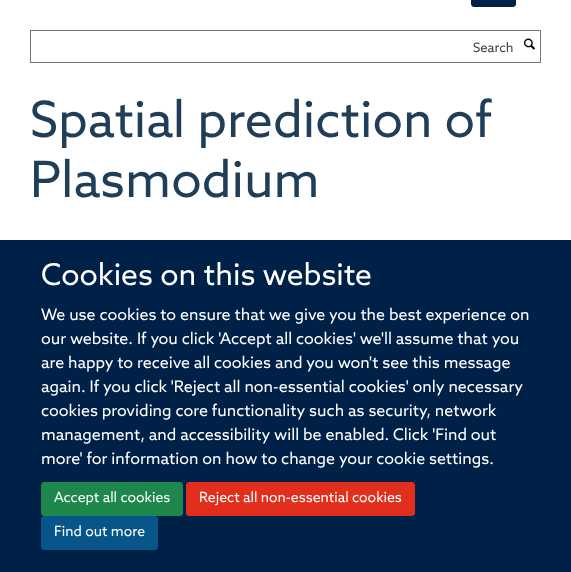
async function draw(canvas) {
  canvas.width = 571
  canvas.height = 572
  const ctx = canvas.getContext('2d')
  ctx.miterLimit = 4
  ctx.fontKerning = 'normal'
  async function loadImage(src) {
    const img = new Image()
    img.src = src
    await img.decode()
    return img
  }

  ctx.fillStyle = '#fff'
  ctx.fillRect(0, 0, 571, 572)
  ctx.fillStyle = '#002147'
  ctx.beginPath()
  ctx.roundRect(471.5, -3.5, 44, 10, 2.5)
  ctx.fill()
  ctx.strokeStyle = '#002147'
  ctx.stroke()
  ctx.strokeStyle = '#777'
  ctx.strokeRect(30.5, 30.5, 510, 32)
  ctx.font = '13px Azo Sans'
  ctx.fillStyle = '#444'
  ctx.fillText('Search', 473, 52)
  ctx.drawImage(await loadImage('image0.png'), 524, 38, 11, 12)
  ctx.font = '50px Azo Sans'
  ctx.fillStyle = '#203e58'
  ctx.fillText('Spatial prediction of', 30, 137)
  ctx.fillText('Plasmodium', 30, 197)
  ctx.fillStyle = '#002147'
  ctx.fillRect(0, 240, 571, 332)
  ctx.font = '30px Azo Sans'
  ctx.fillStyle = '#fff'
  ctx.fillText('Cookies on this website', 41, 285)
  ctx.font = '16px Azo Sans'
  ctx.fillText('We use cookies to ensure that we give you the best experience on', 41, 320)
  ctx.fillText('our website. If you click \'Accept all cookies\' we\'ll assume that you', 41, 344)
  ctx.fillText('are happy to receive all cookies and you won\'t see this message', 41, 368)
  ctx.fillText('again. If you click \'Reject all non-essential cookies\' only necessary', 41, 392)
  ctx.fillText('cookies providing core functionality such as security, network', 41, 416)
  ctx.fillText('management, and accessibility will be enabled. Click \'Find out', 41, 440)
  ctx.fillText('more\' for information on how to change your cookie settings.', 41, 464)
  ctx.fillStyle = '#1e874b'
  ctx.beginPath()
  ctx.roundRect(41.5, 482.5, 141, 33, 2.5)
  ctx.fill()
  ctx.strokeStyle = '#1e874b'
  ctx.stroke()
  ctx.font = '14px Azo Sans'
  ctx.fillStyle = '#fff'
  ctx.fillText('Accept all cookies', 54, 502)
  ctx.fillStyle = '#e22e1c'
  ctx.beginPath()
  ctx.roundRect(186.5, 482.5, 228, 33, 2.5)
  ctx.fill()
  ctx.strokeStyle = '#e22e1c'
  ctx.stroke()
  ctx.fillStyle = '#fff'
  ctx.fillText('Reject all non-essential cookies', 199, 502)
  ctx.fillStyle = '#085589'
  ctx.beginPath()
  ctx.roundRect(41.5, 516.5, 116, 33, 2.5)
  ctx.fill()
  ctx.strokeStyle = '#085589'
  ctx.stroke()
  ctx.fillStyle = '#fff'
  ctx.fillText('Find out more', 54, 536)
}

draw(document.querySelector('canvas'))
